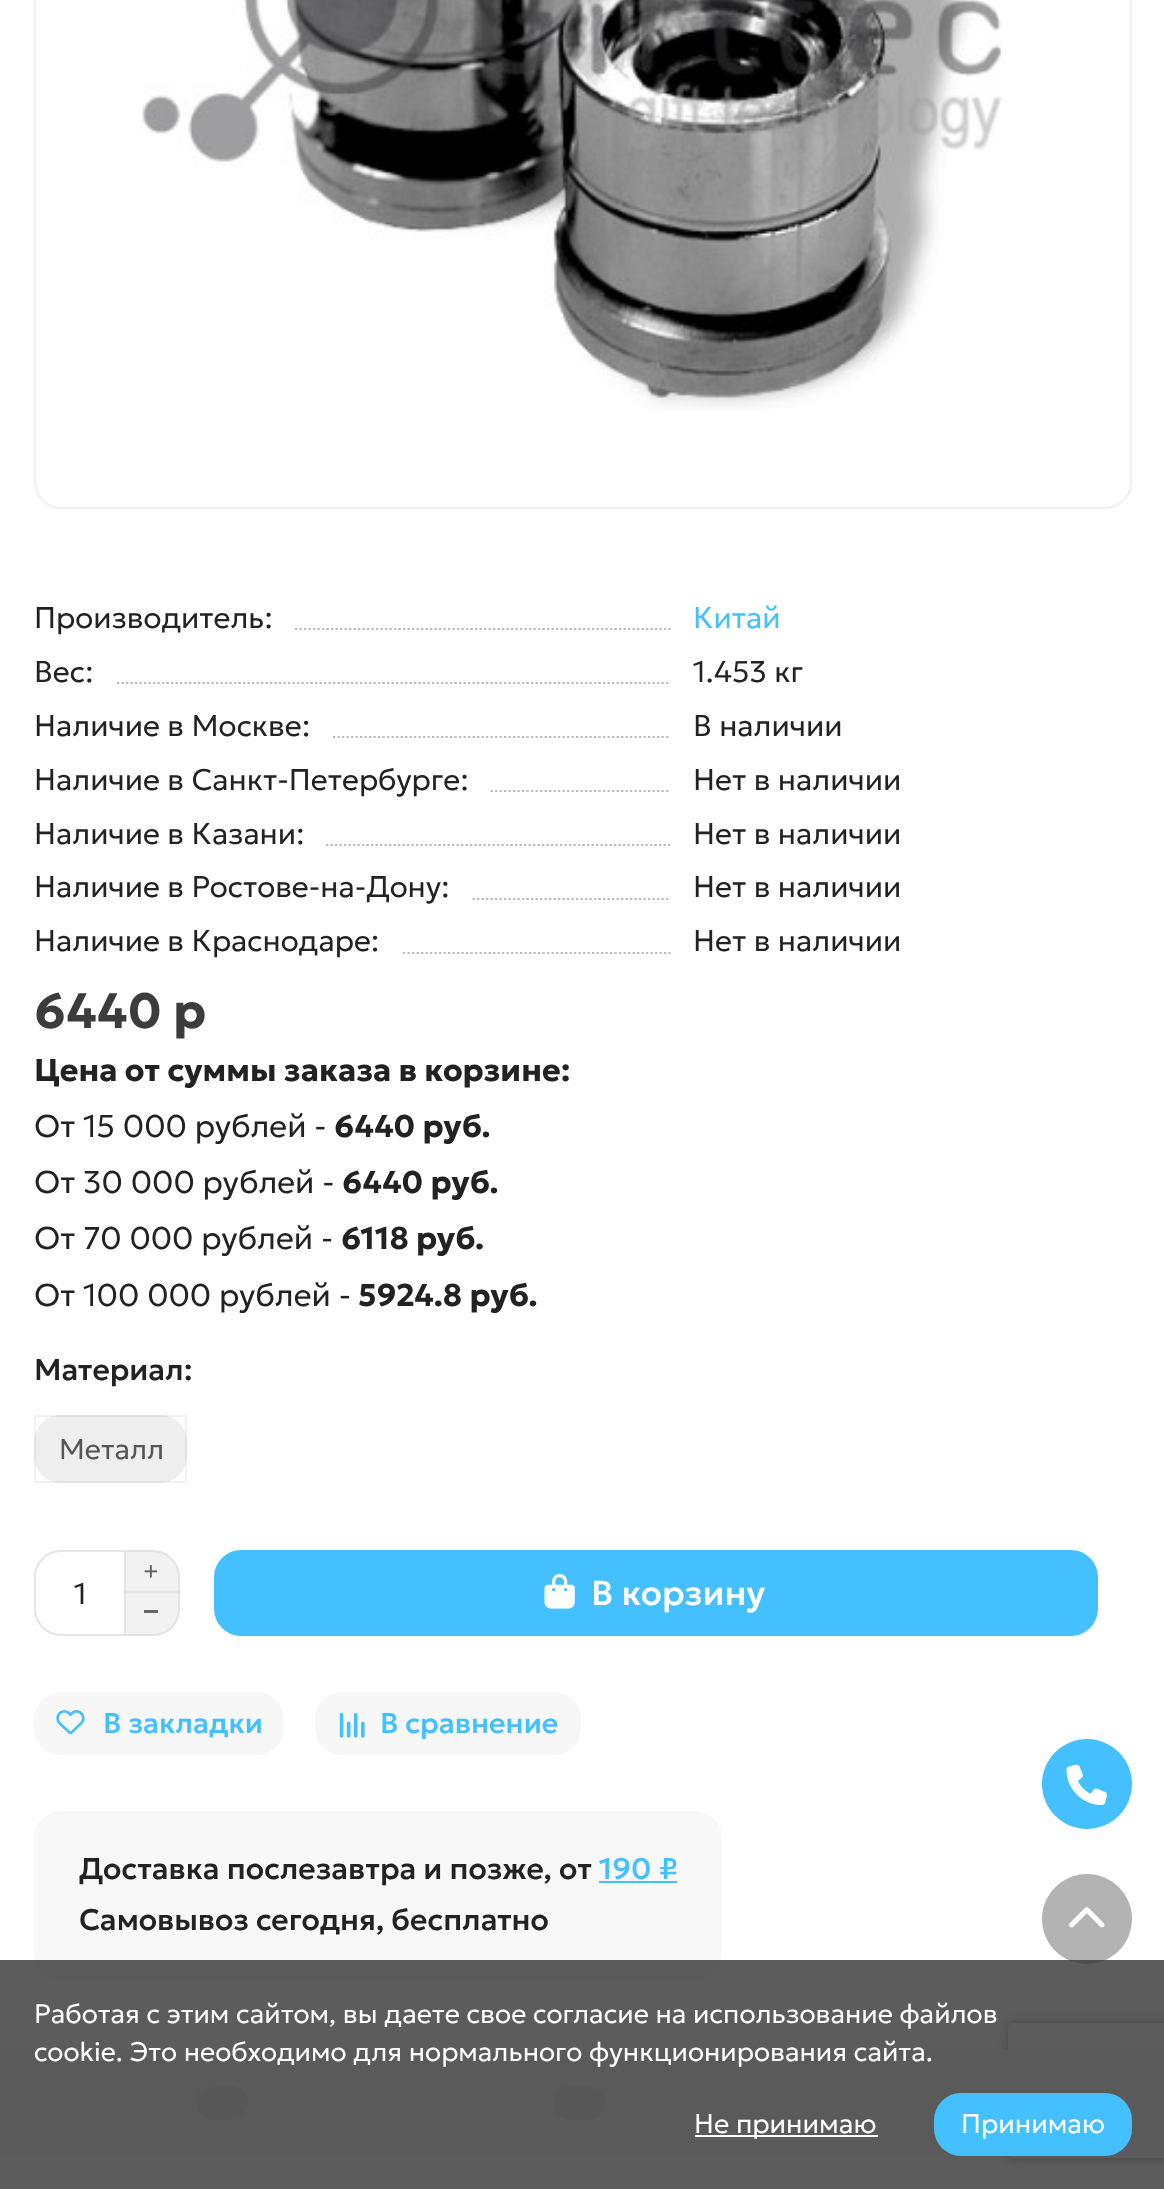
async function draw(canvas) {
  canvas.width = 1164
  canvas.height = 2189
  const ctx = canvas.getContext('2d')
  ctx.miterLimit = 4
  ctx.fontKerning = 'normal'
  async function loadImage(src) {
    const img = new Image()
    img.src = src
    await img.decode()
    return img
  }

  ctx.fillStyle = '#fff'
  ctx.fillRect(0, 0, 1164, 2189)
  ctx.beginPath()
  ctx.roundRect(35, -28, 1096, 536, 26)
  ctx.strokeStyle = '#f0f0f0'
  ctx.lineWidth = 2
  ctx.stroke()
  ctx.drawImage(await loadImage('image0.png'), 141, 0, 862, 411)
  ctx.font = '300 29.9px Geologica'
  ctx.fillStyle = '#222'
  ctx.fillText('Производитель:', 34, 628)
  ctx.beginPath()
  ctx.moveTo(295, 629)
  ctx.lineTo(670.5, 629)
  ctx.strokeStyle = '#bbb'
  ctx.lineWidth = 2.2
  ctx.setLineDash([2.25, 2.25])
  ctx.stroke()
  ctx.fillStyle = '#44c0fe'
  ctx.fillText('Китай', 693, 628)
  ctx.fillStyle = '#222'
  ctx.fillText('Вес:', 34, 682)
  ctx.beginPath()
  ctx.moveTo(117, 683)
  ctx.lineTo(670.5, 683)
  ctx.stroke()
  ctx.fillText('1.453 кг', 693, 682)
  ctx.fillText('Наличие в Москве:', 34, 736)
  ctx.beginPath()
  ctx.moveTo(333, 737)
  ctx.lineTo(670.5, 737)
  ctx.stroke()
  ctx.fillText('В наличии', 693, 736)
  ctx.fillText('Наличие в Санкт-Петербурге:', 34, 790)
  ctx.beginPath()
  ctx.moveTo(490.5, 791)
  ctx.lineTo(670.5, 791)
  ctx.stroke()
  ctx.fillText('Нет в наличии', 693, 790)
  ctx.fillText('Наличие в Казани:', 34, 844)
  ctx.beginPath()
  ctx.moveTo(326, 845)
  ctx.lineTo(670.5, 845)
  ctx.stroke()
  ctx.fillText('Нет в наличии', 693, 844)
  ctx.fillText('Наличие в Ростове-на-Дону:', 34, 897)
  ctx.beginPath()
  ctx.moveTo(472.5, 899)
  ctx.lineTo(670.5, 899)
  ctx.stroke()
  ctx.fillText('Нет в наличии', 693, 897)
  ctx.fillText('Наличие в Краснодаре:', 34, 951)
  ctx.beginPath()
  ctx.moveTo(403, 953)
  ctx.lineTo(670.5, 953)
  ctx.stroke()
  ctx.fillText('Нет в наличии', 693, 951)
  ctx.font = 'bold 49.5px Geologica'
  ctx.fillStyle = '#3c3c3c'
  ctx.fillText('6440 р', 34, 1028)
  ctx.font = 'bold 31.5px Geologica'
  ctx.fillStyle = '#222'
  ctx.fillText('Цена от суммы заказа в корзине:', 34, 1081)
  ctx.font = '300 31.5px Geologica'
  ctx.fillText('От 15 000 рублей -', 34, 1137)
  ctx.font = 'bold 31.5px Geologica'
  ctx.fillText('6440 руб.', 334, 1137)
  ctx.font = '300 31.5px Geologica'
  ctx.fillText('От 30 000 рублей -', 34, 1193)
  ctx.font = 'bold 31.5px Geologica'
  ctx.fillText('6440 руб.', 342, 1193)
  ctx.font = '300 31.5px Geologica'
  ctx.fillText('От 70 000 рублей -', 34, 1249)
  ctx.font = 'bold 31.5px Geologica'
  ctx.fillText('6118 руб.', 341, 1249)
  ctx.font = '300 31.5px Geologica'
  ctx.fillText('От 100 000 рублей -', 34, 1306)
  ctx.font = 'bold 31.5px Geologica'
  ctx.fillText('5924.8 руб.', 358, 1306)
  ctx.font = '500 29.9px Geologica'
  ctx.fillText('Материал:', 34, 1380)
  ctx.fillStyle = '#eee'
  ctx.beginPath()
  ctx.roundRect(34, 1415, 153, 68, 27)
  ctx.fill()
  ctx.strokeStyle = '#0000000d'
  ctx.lineWidth = 2
  ctx.setLineDash([])
  ctx.strokeRect(35, 1416, 151, 66)
  ctx.font = '300 28.5px Geologica'
  ctx.fillStyle = '#555'
  ctx.fillText('Металл', 59, 1459)
  ctx.fillStyle = '#e6e6e6'
  ctx.beginPath()
  ctx.moveTo(61, 1550)
  ctx.lineTo(124, 1550)
  ctx.lineTo(124, 1636)
  ctx.lineTo(61, 1636)
  ctx.bezierCurveTo(46, 1636, 34, 1624, 34, 1609)
  ctx.lineTo(34, 1577)
  ctx.bezierCurveTo(34, 1562, 46, 1550, 61, 1550)
  ctx.closePath()
  ctx.moveTo(61, 1552)
  ctx.lineTo(124, 1552)
  ctx.lineTo(124, 1634)
  ctx.lineTo(61, 1634)
  ctx.bezierCurveTo(47, 1634, 36, 1622, 36, 1609)
  ctx.lineTo(36, 1577)
  ctx.bezierCurveTo(36, 1564, 47, 1552, 61, 1552)
  ctx.closePath()
  ctx.fill('evenodd')
  ctx.font = '300 29.9px Geologica'
  ctx.fillStyle = '#222'
  ctx.fillText('1', 74, 1604)
  ctx.fillStyle = '#f2f2f2'
  ctx.beginPath()
  ctx.roundRect(125, 1551, 54, 41, [0, 26, 0, 0])
  ctx.fill()
  ctx.strokeStyle = '#e3e3e3'
  ctx.stroke()
  ctx.drawImage(await loadImage('image1.png'), 144, 1565, 14, 13)
  ctx.beginPath()
  ctx.roundRect(124, 1593, 56, 43, [0, 0, 27, 0])
  ctx.fill()
  ctx.fillStyle = '#e3e3e3'
  ctx.beginPath()
  ctx.moveTo(124, 1593)
  ctx.lineTo(180, 1593)
  ctx.lineTo(180, 1609)
  ctx.bezierCurveTo(180, 1624, 168, 1636, 153, 1636)
  ctx.lineTo(124, 1636)
  ctx.closePath()
  ctx.moveTo(126, 1593)
  ctx.lineTo(178, 1593)
  ctx.lineTo(178, 1609)
  ctx.bezierCurveTo(178, 1622, 167, 1634, 153, 1634)
  ctx.lineTo(126, 1634)
  ctx.closePath()
  ctx.fill('evenodd')
  ctx.fillStyle = '#666'
  ctx.fillRect(144, 1610, 14, 3)
  ctx.fillStyle = '#44c0fe'
  ctx.beginPath()
  ctx.roundRect(214, 1550, 884, 86, 27)
  ctx.fill()
  ctx.drawImage(await loadImage('image2.png'), 544, 1573, 31, 36)
  ctx.font = '500 34.5px Geologica'
  ctx.fillStyle = '#fff'
  ctx.fillText('В корзину', 591, 1605)
  ctx.fillStyle = '#f7f7f7'
  ctx.beginPath()
  ctx.roundRect(34, 1692, 250, 63, 27)
  ctx.fill()
  ctx.drawImage(await loadImage('image3.png'), 56, 1710, 29, 25)
  ctx.font = '500 28.5px Geologica'
  ctx.fillStyle = '#44c0fe'
  ctx.fillText('В закладки', 103, 1733)
  ctx.fillStyle = '#f7f7f7'
  ctx.beginPath()
  ctx.roundRect(315, 1692, 266, 63, 27)
  ctx.fill()
  ctx.drawImage(await loadImage('image4.png'), 339, 1712, 26, 26)
  ctx.fillStyle = '#44c0fe'
  ctx.fillText('В сравнение', 380, 1733)
  ctx.fillStyle = '#f8f8f8'
  ctx.beginPath()
  ctx.roundRect(34, 1811, 688, 169, 27)
  ctx.fill()
  ctx.font = '500 29.9px Geologica'
  ctx.fillStyle = '#222'
  ctx.fillText('Доставка послезавтра и позже, от', 79, 1879)
  ctx.fillStyle = '#44c0fe'
  ctx.fillText('190 ₽', 599, 1879)
  ctx.fillRect(599, 1881, 78, 2)
  ctx.fillStyle = '#222'
  ctx.fillText('Самовывоз сегодня, бесплатно', 79, 1930)
  ctx.save()
  ctx.beginPath()
  ctx.moveTo(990, 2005)
  ctx.lineTo(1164, 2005)
  ctx.lineTo(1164, 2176)
  ctx.lineTo(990, 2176)
  ctx.closePath()
  ctx.moveTo(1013, 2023)
  ctx.lineTo(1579, 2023)
  ctx.bezierCurveTo(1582, 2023, 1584, 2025, 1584, 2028)
  ctx.lineTo(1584, 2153)
  ctx.bezierCurveTo(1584, 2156, 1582, 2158, 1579, 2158)
  ctx.lineTo(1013, 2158)
  ctx.bezierCurveTo(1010, 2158, 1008, 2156, 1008, 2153)
  ctx.lineTo(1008, 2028)
  ctx.bezierCurveTo(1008, 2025, 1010, 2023, 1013, 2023)
  ctx.closePath()
  ctx.clip('evenodd')
  ctx.fillStyle = '#808080'
  ctx.filter = 'blur(5.5px)'
  ctx.beginPath()
  ctx.roundRect(1008, 2023, 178, 135, 5)
  ctx.fill()
  ctx.filter = 'none'
  ctx.restore()
  ctx.fillStyle = '#f5f5f5'
  ctx.fillRect(0, 2050, 1164, 103)
  ctx.fillStyle = '#e4e4e4'
  ctx.beginPath()
  ctx.roundRect(196, 2086, 52, 34, 17)
  ctx.fill()
  ctx.beginPath()
  ctx.roundRect(554, 2086, 51, 34, 17)
  ctx.fill()
  ctx.fillStyle = '#44c0fe'
  ctx.beginPath()
  ctx.arc(1087, 1784, 45, 0, 2 * Math.PI)
  ctx.fill()
  ctx.drawImage(await loadImage('image5.png'), 1066, 1764, 41, 42)
  ctx.fillStyle = '#b3b3b3'
  ctx.beginPath()
  ctx.arc(1087, 1919, 45, 0, 2 * Math.PI)
  ctx.fill()
  ctx.drawImage(await loadImage('image6.png'), 1069, 1907, 36, 21)
  ctx.fillStyle = '#333333cc'
  ctx.fillRect(0, 1960, 1164, 229)
  ctx.font = '300 26.8px Geologica'
  ctx.fillStyle = '#fff'
  ctx.fillText('Работая с этим сайтом, вы даете свое согласие на использование файлов', 34, 2023)
  ctx.fillText('cookie. Это необходимо для нормального функционирования сайта.', 34, 2061)
  ctx.fillRect(695, 2135, 183, 2)
  ctx.font = '300 27px Geologica'
  ctx.fillText('Не принимаю', 694, 2133)
  ctx.fillStyle = '#44c0fe'
  ctx.beginPath()
  ctx.roundRect(934, 2093, 198, 63, 27)
  ctx.fill()
  ctx.fillStyle = '#fff'
  ctx.fillText('Принимаю', 961, 2133)
}

draw(document.querySelector('canvas'))
